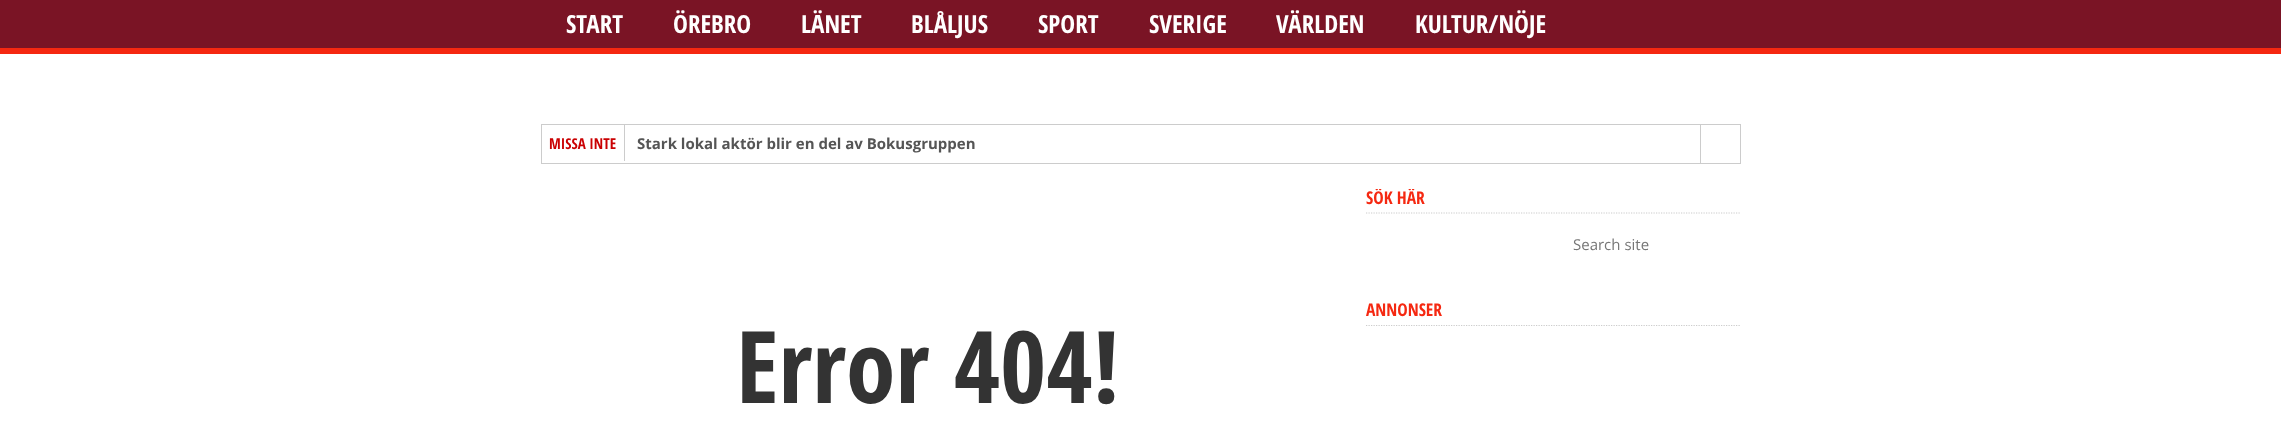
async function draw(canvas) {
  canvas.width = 2281
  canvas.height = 424
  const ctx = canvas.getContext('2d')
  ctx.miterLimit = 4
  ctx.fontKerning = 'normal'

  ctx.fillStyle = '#fff'
  ctx.fillRect(0, 0, 2281, 424)
  ctx.fillStyle = '#7a1425'
  ctx.fillRect(0, 0, 2281, 48)
  ctx.fillStyle = '#f52811'
  ctx.fillRect(0, 48, 2281, 6)
  ctx.font = 'bold 25px Open Sans Condensed'
  ctx.fillStyle = '#fff'
  ctx.fillText('START', 566, 33)
  ctx.fillText('ÖREBRO', 673, 33)
  ctx.fillText('LÄNET', 801, 33)
  ctx.fillText('BLÅLJUS', 911, 33)
  ctx.fillText('SPORT', 1038, 33)
  ctx.fillText('SVERIGE', 1149, 33)
  ctx.fillText('VÄRLDEN', 1276, 33)
  ctx.fillText('KULTUR/NÖJE', 1415, 33)
  ctx.strokeStyle = '#ccc'
  ctx.strokeRect(541.5, 124.5, 1199, 39)
  ctx.fillStyle = '#ccc'
  ctx.fillRect(624, 125, 1, 36)
  ctx.font = 'bold 15px Open Sans Condensed'
  ctx.fillStyle = '#ca0002'
  ctx.fillText('MISSA INTE', 549, 149)
  ctx.font = 'bold 15px Open Sans'
  ctx.fillStyle = '#555'
  ctx.fillText('Stark lokal aktör blir en del av Bokusgruppen', 637, 149)
  ctx.fillStyle = '#ccc'
  ctx.fillRect(1700, 125, 1, 38)
  ctx.beginPath()
  ctx.moveTo(1366, 213)
  ctx.lineTo(1741, 213)
  ctx.lineWidth = 1.2
  ctx.setLineDash([1.25, 1.25])
  ctx.stroke()
  ctx.save()
  ctx.beginPath()
  ctx.rect(1366, 189, 375, 75)
  ctx.clip()
  ctx.font = 'bold 17.5px Open Sans Condensed'
  ctx.fillStyle = '#f52811'
  ctx.fillText('SÖK HÄR', 1366, 204)
  ctx.restore()
  ctx.font = '15px Open Sans'
  ctx.fillStyle = '#777'
  ctx.fillText('Search site', 1573, 250)
  ctx.beginPath()
  ctx.moveTo(1366, 325.5)
  ctx.lineTo(1741, 325.5)
  ctx.stroke()
  ctx.font = 'bold 17.5px Open Sans Condensed'
  ctx.fillStyle = '#f52811'
  ctx.fillText('ANNONSER', 1366, 316)
  ctx.font = 'bold 100px Open Sans Condensed'
  ctx.fillStyle = '#333'
  ctx.fillText('Error 404!', 736, 403)
}

draw(document.querySelector('canvas'))
